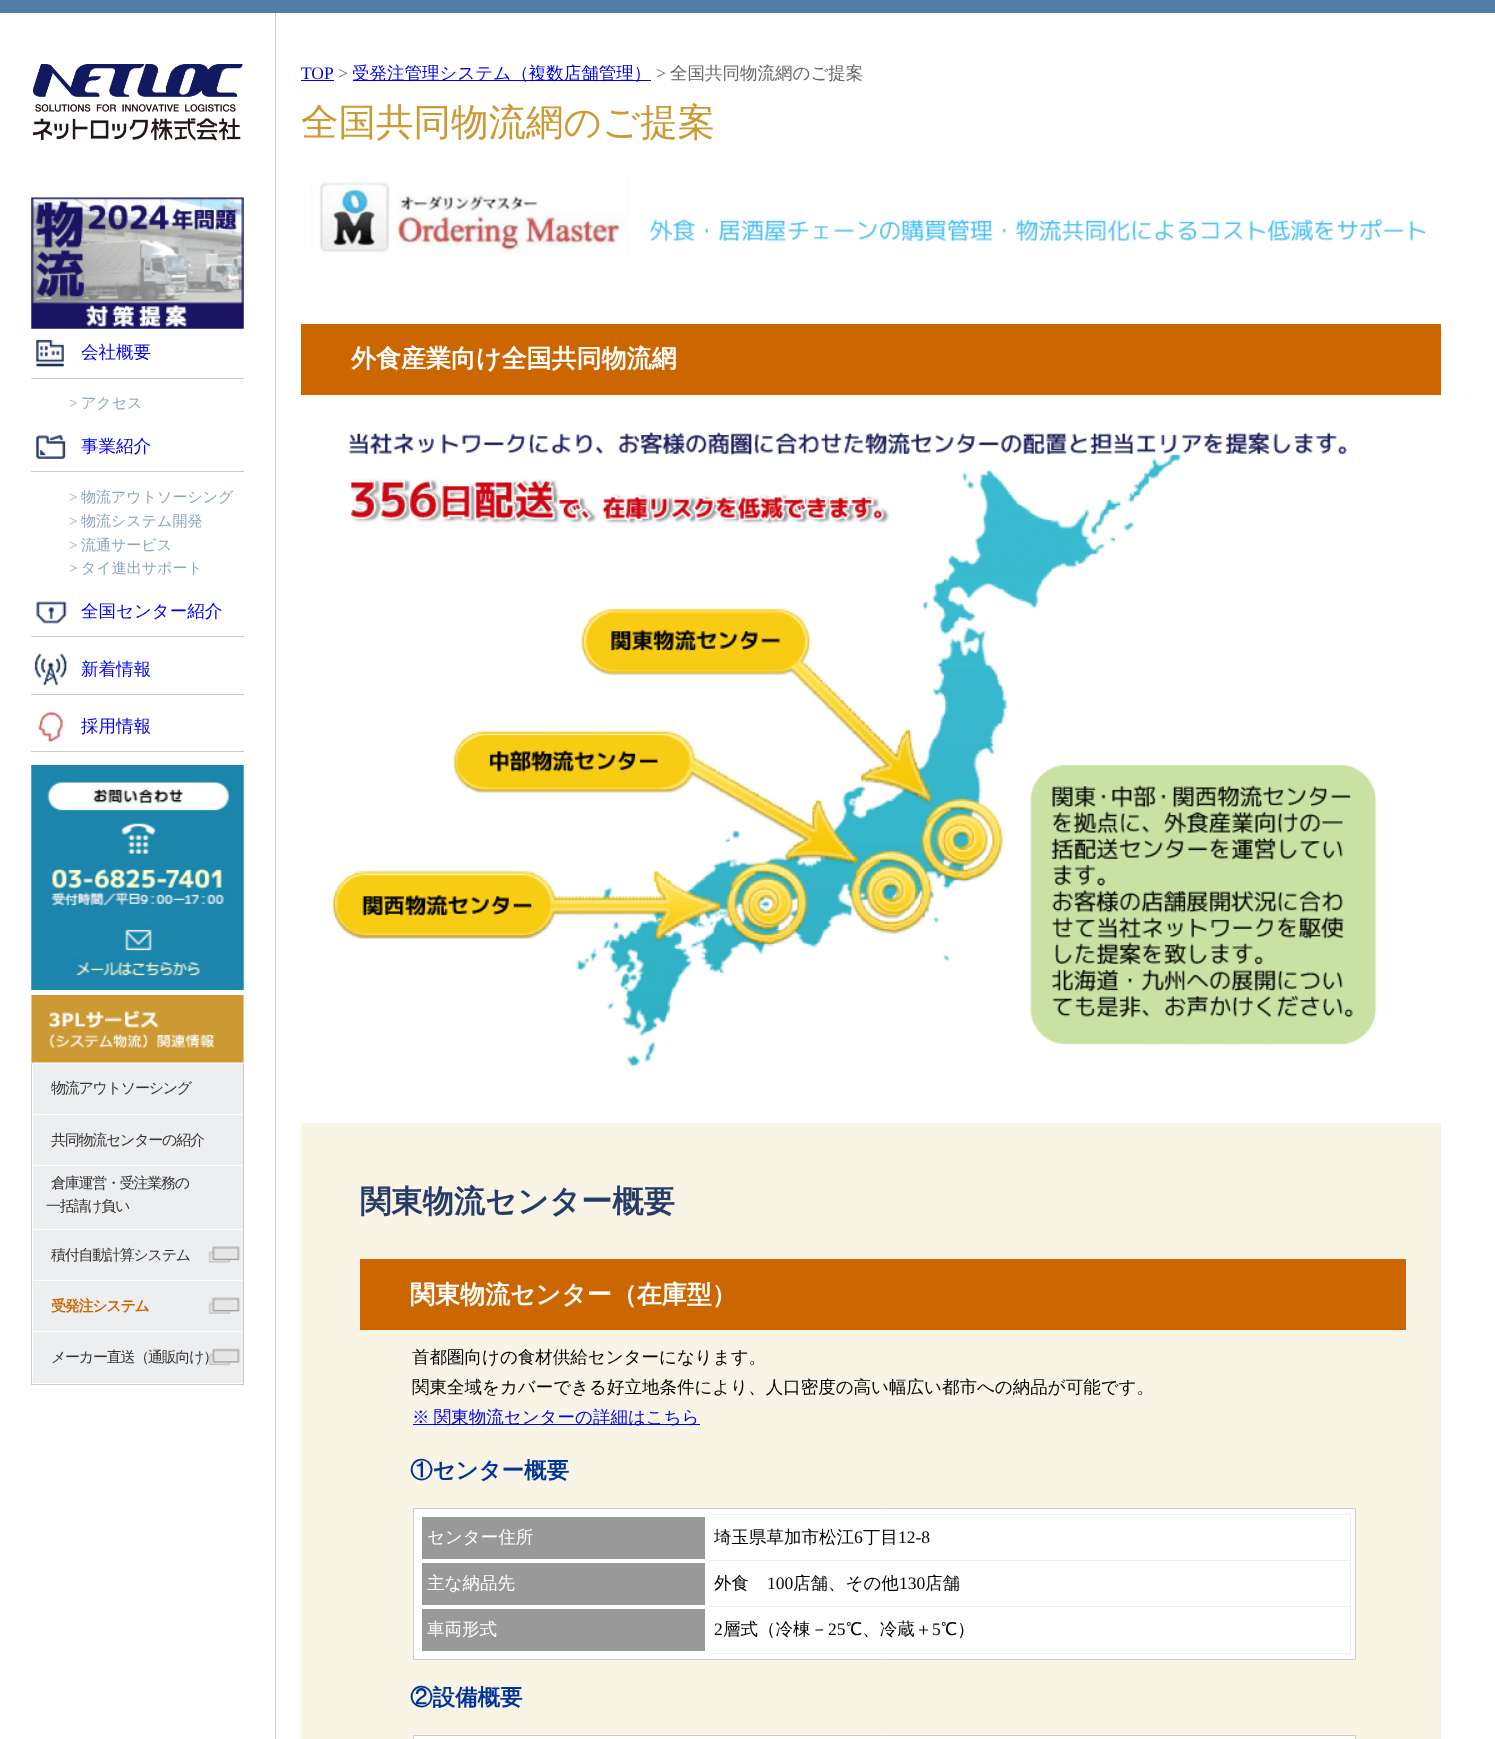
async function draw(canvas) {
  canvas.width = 1495
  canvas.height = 1739
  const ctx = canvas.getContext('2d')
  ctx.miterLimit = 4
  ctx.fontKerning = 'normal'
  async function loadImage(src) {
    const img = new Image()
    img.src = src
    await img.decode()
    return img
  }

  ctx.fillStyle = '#fff'
  ctx.fillRect(0, 0, 1495, 1739)
  ctx.fillStyle = '#507ea4'
  ctx.fillRect(0, 0, 1495, 13)
  ctx.drawImage(await loadImage('image0.png'), 33, 64, 210, 77)
  ctx.drawImage(await loadImage('image1.png'), 31, 197, 213, 132)
  ctx.drawImage(await loadImage('image2.png'), 33, 334, 31, 33)
  ctx.fillStyle = '#ccc'
  ctx.fillRect(31, 378, 213, 1)
  ctx.font = '500 17.5px WenQuanYi Zen Hei'
  ctx.fillStyle = '#00e'
  ctx.fillText('会社概要', 81, 358)
  ctx.font = '15px Liberation Serif'
  ctx.fillStyle = '#8ca6bf'
  ctx.fillText('>', 69, 408)
  ctx.font = '500 15px WenQuanYi Zen Hei'
  ctx.fillText('アクセス', 81, 408)
  ctx.drawImage(await loadImage('image3.png'), 36, 434, 30, 25)
  ctx.fillStyle = '#ccc'
  ctx.fillRect(31, 471, 213, 1)
  ctx.font = '500 17.5px WenQuanYi Zen Hei'
  ctx.fillStyle = '#00e'
  ctx.fillText('事業紹介', 81, 452)
  ctx.font = '15px Liberation Serif'
  ctx.fillStyle = '#8ca6bf'
  ctx.fillText('>', 69, 502)
  ctx.font = '500 15px WenQuanYi Zen Hei'
  ctx.fillText('物流アウトソーシング', 81, 502)
  ctx.font = '15px Liberation Serif'
  ctx.fillText('>', 69, 526)
  ctx.font = '500 15px WenQuanYi Zen Hei'
  ctx.fillText('物流システム開発', 81, 526)
  ctx.font = '15px Liberation Serif'
  ctx.fillText('>', 69, 550)
  ctx.font = '500 15px WenQuanYi Zen Hei'
  ctx.fillText('流通サービス', 81, 550)
  ctx.font = '15px Liberation Serif'
  ctx.fillText('>', 69, 573)
  ctx.font = '500 15px WenQuanYi Zen Hei'
  ctx.fillText('タイ進出サポート', 81, 573)
  ctx.drawImage(await loadImage('image4.png'), 36, 601, 31, 23)
  ctx.fillStyle = '#ccc'
  ctx.fillRect(31, 636, 213, 1)
  ctx.font = '500 17.5px WenQuanYi Zen Hei'
  ctx.fillStyle = '#00e'
  ctx.fillText('全国センター紹介', 81, 617)
  ctx.drawImage(await loadImage('image5.png'), 34, 653, 35, 33)
  ctx.fillStyle = '#ccc'
  ctx.fillRect(31, 694, 213, 1)
  ctx.fillStyle = '#00e'
  ctx.fillText('新着情報', 81, 675)
  ctx.drawImage(await loadImage('image6.png'), 38, 712, 25, 32)
  ctx.fillStyle = '#ccc'
  ctx.fillRect(31, 751, 213, 1)
  ctx.fillStyle = '#00e'
  ctx.fillText('採用情報', 81, 732)
  ctx.drawImage(await loadImage('image7.png'), 31, 765, 213, 225)
  ctx.drawImage(await loadImage('image8.png'), 31, 995, 213, 69)
  ctx.fillStyle = '#ccc'
  ctx.fillRect(243, 1064, 1, 321)
  ctx.fillRect(31, 1384, 213, 1)
  ctx.fillRect(31, 1064, 1, 321)
  ctx.fillStyle = '#edeef0'
  ctx.fillRect(33, 1064, 210, 50)
  ctx.letterSpacing = '-1.25px'
  ctx.font = '500 15px WenQuanYi Zen Hei'
  ctx.fillStyle = '#333'
  ctx.fillText('物流アウトソーシング', 51, 1093)
  ctx.fillStyle = '#edeef0'
  ctx.fillRect(33, 1115, 210, 50)
  ctx.fillStyle = '#333'
  ctx.fillText('共同物流センターの紹介', 51, 1145)
  ctx.fillStyle = '#edeef0'
  ctx.fillRect(33, 1166, 210, 63)
  ctx.fillStyle = '#333'
  ctx.fillText('倉庫運営・受注業務の', 51, 1188)
  ctx.fillText('一括請け負い', 46, 1211)
  ctx.fillStyle = '#edeef0'
  ctx.fillRect(33, 1230, 210, 50)
  ctx.drawImage(await loadImage('image9.png'), 208, 1246, 32, 17)
  ctx.fillStyle = '#333'
  ctx.fillText('積付自動計算システム', 51, 1260)
  ctx.fillStyle = '#edeef0'
  ctx.fillRect(33, 1281, 210, 102)
  ctx.drawImage(await loadImage('image10.png'), 208, 1297, 32, 17)
  ctx.fillStyle = '#fff'
  ctx.fillRect(33, 1331, 210, 1)
  ctx.font = 'bold 15px WenQuanYi Zen Hei'
  ctx.fillStyle = '#c60'
  ctx.fillText('受発注システム', 51, 1311)
  ctx.drawImage(await loadImage('image11.png'), 208, 1348, 32, 18)
  ctx.font = '500 15px WenQuanYi Zen Hei'
  ctx.fillStyle = '#333'
  ctx.fillText('メーカー直送（通販向け）', 51, 1362)
  ctx.fillStyle = '#ccc'
  ctx.fillRect(275, 13, 1, 1726)
  ctx.letterSpacing = '0px'
  ctx.font = '17.5px Liberation Serif'
  ctx.fillStyle = '#00e'
  ctx.fillText('TOP', 301, 79)
  ctx.fillRect(301, 80, 33, 1)
  ctx.fillStyle = '#666'
  ctx.fillText('>', 338, 79)
  ctx.fillStyle = '#00e'
  ctx.fillRect(353, 80, 298, 1)
  ctx.font = '500 17.5px WenQuanYi Zen Hei'
  ctx.fillText('受発注管理システム（複数店舗管理）', 352, 79)
  ctx.font = '17.5px Liberation Serif'
  ctx.fillStyle = '#666'
  ctx.fillText('>', 656, 79)
  ctx.font = '500 17.5px WenQuanYi Zen Hei'
  ctx.fillText('全国共同物流網のご提案', 670, 79)
  ctx.font = '500 37.5px WenQuanYi Zen Hei'
  ctx.fillStyle = '#c93'
  ctx.fillText('全国共同物流網のご提案', 301, 135)
  ctx.drawImage(await loadImage('image12.png'), 311, 181, 1115, 74)
  ctx.fillStyle = '#c60'
  ctx.fillRect(301, 324, 1140, 71)
  ctx.font = 'bold 25px WenQuanYi Zen Hei'
  ctx.fillStyle = '#fff'
  ctx.fillText('外食産業向け全国共同物流網', 351, 367)
  ctx.drawImage(await loadImage('image13.png'), 332, 423, 1045, 645)
  ctx.fillStyle = '#f8f5e6'
  ctx.fillRect(301, 1123, 1140, 616)
  ctx.font = 'bold 31.25px WenQuanYi Zen Hei'
  ctx.fillStyle = '#263b68'
  ctx.fillText('関東物流センター概要', 360, 1212)
  ctx.fillStyle = '#c60'
  ctx.fillRect(360, 1259, 1046, 71)
  ctx.font = 'bold 25px WenQuanYi Zen Hei'
  ctx.fillStyle = '#fff'
  ctx.fillText('関東物流センター（在庫型）', 410, 1303)
  ctx.font = '500 17.5px WenQuanYi Zen Hei'
  ctx.fillStyle = '#000'
  ctx.fillText('首都圏向けの食材供給センターになります。', 412, 1363)
  ctx.fillText('関東全域をカバーできる好立地条件により、人口密度の高い幅広い都市への納品が可能です。', 412, 1393)
  ctx.fillStyle = '#00e'
  ctx.fillRect(413, 1424, 287, 1)
  ctx.wordSpacing = '-1px'
  ctx.fillText('※ 関東物流センターの詳細はこちら', 412, 1423)
  ctx.wordSpacing = '0px'
  ctx.font = 'bold 22.5px WenQuanYi Zen Hei'
  ctx.fillStyle = '#039'
  ctx.fillText('①センター概要', 410, 1478)
  ctx.fillStyle = '#fff'
  ctx.beginPath()
  ctx.rect(413.5, 1508.5, 942, 151)
  ctx.fill()
  ctx.strokeStyle = '#ccc'
  ctx.stroke()
  ctx.fillStyle = '#999'
  ctx.fillRect(422, 1517, 283, 42)
  ctx.fillStyle = '#eee'
  ctx.fillRect(706, 1514, 645, 1)
  ctx.fillStyle = '#fff'
  ctx.fillRect(706, 1514, 3, 1)
  ctx.font = '500 17.5px WenQuanYi Zen Hei'
  ctx.fillText('センター住所', 427, 1543)
  ctx.fillStyle = '#eee'
  ctx.fillRect(706, 1560, 645, 1)
  ctx.fillRect(706, 1606, 645, 1)
  ctx.fillRect(1350, 1606, 1, 48)
  ctx.fillRect(1350, 1560, 1, 48)
  ctx.fillRect(1350, 1514, 1, 47)
  ctx.fillStyle = '#000'
  ctx.fillText('埼玉県草加市松江', 714, 1543)
  ctx.font = '17.5px Liberation Serif'
  ctx.fillText('6', 854, 1543)
  ctx.font = '500 17.5px WenQuanYi Zen Hei'
  ctx.fillText('丁目', 863, 1543)
  ctx.font = '17.5px Liberation Serif'
  ctx.fillText('12-8', 898, 1543)
  ctx.fillStyle = '#999'
  ctx.fillRect(422, 1563, 283, 42)
  ctx.fillStyle = '#fff'
  ctx.fillRect(706, 1560, 3, 1)
  ctx.font = '500 17.5px WenQuanYi Zen Hei'
  ctx.fillText('主な納品先', 427, 1589)
  ctx.fillStyle = '#000'
  ctx.fillText('外食', 714, 1589)
  ctx.font = '17.5px Liberation Serif'
  ctx.fillText('100', 767, 1589)
  ctx.font = '500 17.5px WenQuanYi Zen Hei'
  ctx.fillText('店舗、その他', 793, 1589)
  ctx.font = '17.5px Liberation Serif'
  ctx.fillText('130', 899, 1589)
  ctx.font = '500 17.5px WenQuanYi Zen Hei'
  ctx.fillText('店舗', 925, 1589)
  ctx.fillStyle = '#999'
  ctx.fillRect(422, 1609, 283, 42)
  ctx.fillStyle = '#fff'
  ctx.fillRect(706, 1606, 3, 1)
  ctx.fillStyle = '#eee'
  ctx.fillRect(706, 1653, 645, 1)
  ctx.fillStyle = '#fff'
  ctx.fillRect(706, 1653, 3, 2)
  ctx.fillText('車両形式', 427, 1635)
  ctx.font = '17.5px Liberation Serif'
  ctx.fillStyle = '#000'
  ctx.fillText('2', 714, 1635)
  ctx.font = '500 17.5px WenQuanYi Zen Hei'
  ctx.fillText('層式（冷棟－', 723, 1635)
  ctx.font = '17.5px Liberation Serif'
  ctx.fillText('25', 828, 1635)
  ctx.font = '500 17.5px WenQuanYi Zen Hei'
  ctx.fillText('℃、冷蔵＋', 846, 1635)
  ctx.font = '17.5px Liberation Serif'
  ctx.fillText('5', 932, 1635)
  ctx.font = '500 17.5px WenQuanYi Zen Hei'
  ctx.fillText('℃）', 941, 1635)
  ctx.font = 'bold 22.5px WenQuanYi Zen Hei'
  ctx.fillStyle = '#039'
  ctx.fillText('②設備概要', 410, 1705)
  ctx.fillStyle = '#fff'
  ctx.beginPath()
  ctx.rect(413.5, 1735.5, 942, 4)
  ctx.fill()
  ctx.stroke()
}

draw(document.querySelector('canvas'))
